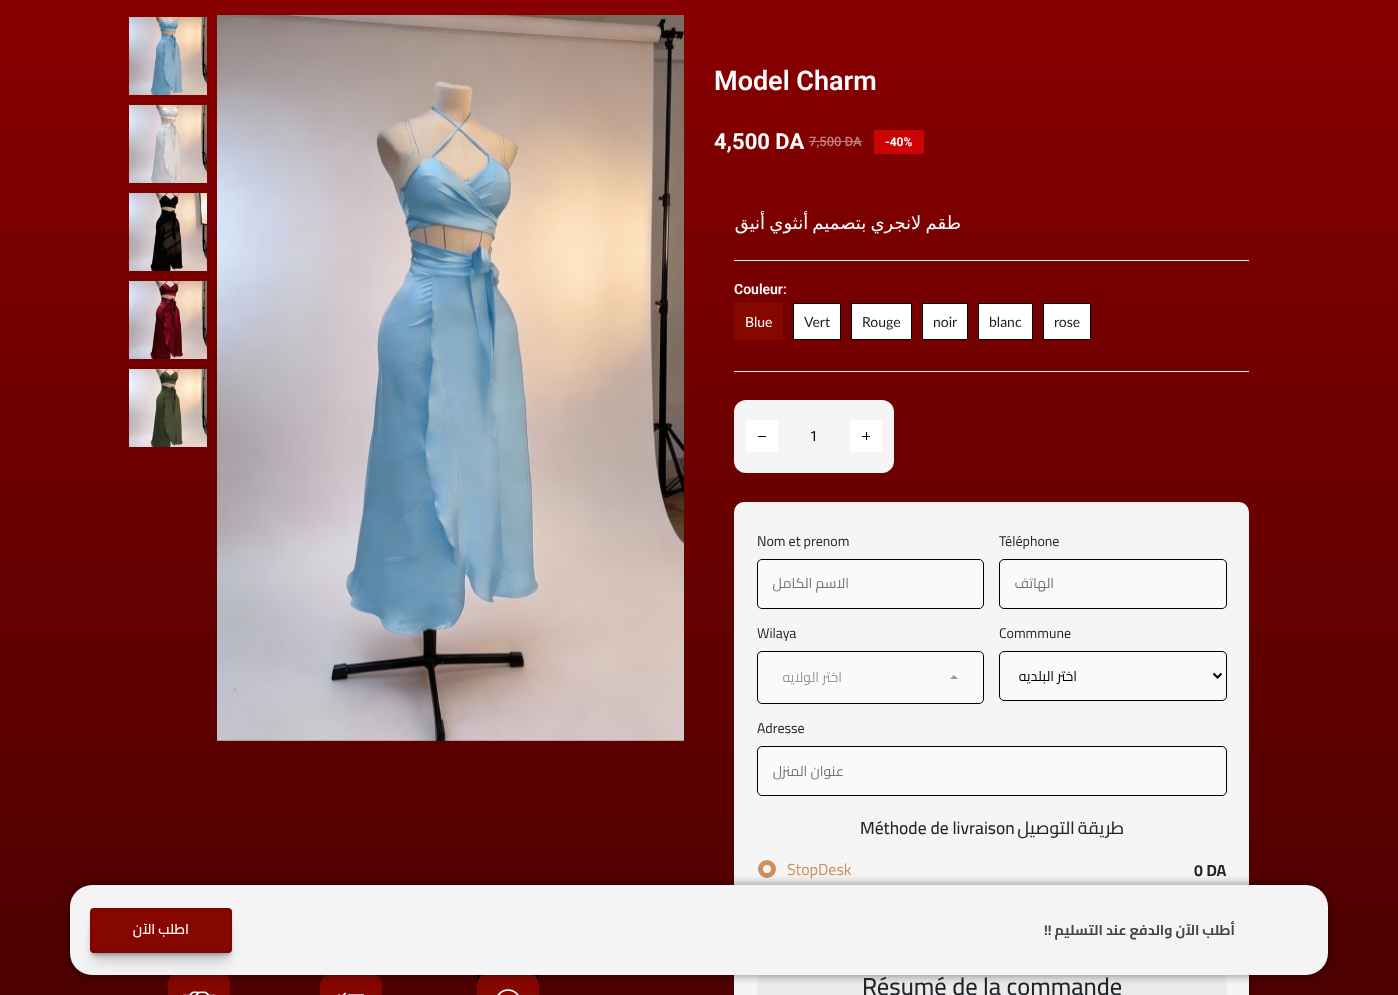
async function draw(canvas) {
  canvas.width = 1398
  canvas.height = 995
  const ctx = canvas.getContext('2d')
  ctx.miterLimit = 4
  ctx.fontKerning = 'normal'
  async function loadImage(src) {
    const img = new Image()
    img.src = src
    await img.decode()
    return img
  }
  let gradient

  ctx.fillStyle = '#fff'
  ctx.fillRect(0, 0, 1398, 995)
  gradient = ctx.createLinearGradient(699, 0, 699, 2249)
  gradient.addColorStop(0, '#890000')
  gradient.addColorStop(1, '#000')
  ctx.fillStyle = gradient
  ctx.fillRect(0, 0, 1398, 995)
  ctx.drawImage(await loadImage('image0.png'), 129, 17, 78, 78)
  ctx.drawImage(await loadImage('image1.png'), 129, 105, 78, 78)
  ctx.drawImage(await loadImage('image2.png'), 129, 193, 78, 78)
  ctx.drawImage(await loadImage('image3.png'), 129, 281, 78, 78)
  ctx.drawImage(await loadImage('image4.png'), 129, 369, 78, 78)
  ctx.drawImage(await loadImage('image5.png'), 217, 15, 467, 726)
  ctx.fillStyle = '#860600'
  ctx.beginPath()
  ctx.roundRect(168, 971, 62, 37, 13)
  ctx.fill()
  ctx.drawImage(await loadImage('image6.png'), 183, 991, 33, 4)
  ctx.beginPath()
  ctx.roundRect(320, 973, 62, 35, 13)
  ctx.fill()
  ctx.drawImage(await loadImage('image7.png'), 338, 992, 26, 3)
  ctx.fillStyle = '#000'
  ctx.fillRect(477, 975, 62, 10)
  ctx.fillStyle = '#860600'
  ctx.beginPath()
  ctx.roundRect(477, 972, 62, 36, 13)
  ctx.fill()
  ctx.drawImage(await loadImage('image8.png'), 497, 989, 22, 6)
  ctx.font = '600 27px Roboto'
  ctx.fillStyle = '#fff'
  ctx.fillText('Model Charm', 714, 90)
  ctx.font = 'bold 22px Roboto'
  ctx.fillText('4,500 DA', 714, 149)
  ctx.font = '500 13px Roboto'
  ctx.fillStyle = '#c08080'
  ctx.fillText('7,500 DA', 809, 146)
  ctx.fillRect(809, 141, 53, 1)
  ctx.fillStyle = '#cd0404'
  ctx.fillRect(874, 130, 50, 24)
  ctx.font = 'bold 12px Roboto'
  ctx.fillStyle = '#fff'
  ctx.fillText('-40%', 885, 146)
  ctx.wordSpacing = '-1.5px'
  ctx.direction = 'rtl'
  ctx.font = '18px DejaVu Sans'
  ctx.fillText('طقم لانجري بتصميم أنثوي أنيق', 961, 229)
  ctx.fillStyle = '#eee'
  ctx.fillRect(734, 260, 515, 1)
  ctx.fillRect(734, 371, 515, 1)
  ctx.wordSpacing = '0px'
  ctx.direction = 'ltr'
  ctx.font = '600 14px Roboto'
  ctx.fillStyle = '#fff'
  ctx.fillText('Couleur:', 734, 294)
  ctx.fillStyle = '#860600'
  ctx.fillRect(734, 303, 49, 37)
  ctx.font = '14px Lato'
  ctx.fillStyle = '#fff'
  ctx.fillText('Blue', 745, 327)
  ctx.beginPath()
  ctx.rect(793.5, 303.5, 47, 36)
  ctx.fill()
  ctx.strokeStyle = '#000'
  ctx.stroke()
  ctx.fillStyle = '#1b1f22'
  ctx.fillText('Vert', 804, 327)
  ctx.fillStyle = '#fff'
  ctx.beginPath()
  ctx.rect(851.5, 303.5, 60, 36)
  ctx.fill()
  ctx.stroke()
  ctx.fillStyle = '#1b1f22'
  ctx.fillText('Rouge', 862, 327)
  ctx.fillStyle = '#fff'
  ctx.beginPath()
  ctx.rect(922.5, 303.5, 45, 36)
  ctx.fill()
  ctx.stroke()
  ctx.fillStyle = '#1b1f22'
  ctx.fillText('noir', 933, 327)
  ctx.fillStyle = '#fff'
  ctx.beginPath()
  ctx.rect(978.5, 303.5, 54, 36)
  ctx.fill()
  ctx.stroke()
  ctx.fillStyle = '#1b1f22'
  ctx.fillText('blanc', 989, 327)
  ctx.fillStyle = '#fff'
  ctx.beginPath()
  ctx.rect(1043.5, 303.5, 47, 36)
  ctx.fill()
  ctx.stroke()
  ctx.fillStyle = '#1b1f22'
  ctx.fillText('rose', 1054, 327)
  ctx.fillStyle = '#f5f5f5'
  ctx.beginPath()
  ctx.roundRect(734, 400, 160, 73, 12)
  ctx.fill()
  ctx.fillStyle = '#fff'
  ctx.beginPath()
  ctx.roundRect(746, 420, 32, 32, 4)
  ctx.fill()
  ctx.fillStyle = '#000'
  ctx.fillRect(758, 436, 8, 1)
  ctx.font = '14px Roboto'
  ctx.fillText('1', 810, 441)
  ctx.fillStyle = '#fff'
  ctx.beginPath()
  ctx.roundRect(850, 420, 32, 32, 4)
  ctx.fill()
  ctx.fillStyle = '#000'
  ctx.fillRect(862, 436, 8, 1)
  ctx.fillRect(866, 432, 1, 8)
  ctx.fillStyle = '#f5f5f5'
  ctx.beginPath()
  ctx.roundRect(734, 502, 515, 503, 10)
  ctx.fill()
  ctx.font = '14px Cairo'
  ctx.fillStyle = '#212529'
  ctx.fillText('Nom et prenom', 757, 546)
  ctx.fillStyle = '#fafafa'
  ctx.beginPath()
  ctx.roundRect(757.5, 559.5, 226, 49, 4.5)
  ctx.fill()
  ctx.stroke()
  ctx.direction = 'rtl'
  ctx.fillStyle = '#757575'
  ctx.fillText('الاسم الكامل', 849, 588)
  ctx.direction = 'ltr'
  ctx.fillStyle = '#212529'
  ctx.fillText('Téléphone', 999, 546)
  ctx.fillStyle = '#fafafa'
  ctx.beginPath()
  ctx.roundRect(999.5, 559.5, 227, 49, 4.5)
  ctx.fill()
  ctx.stroke()
  ctx.direction = 'rtl'
  ctx.fillStyle = '#757575'
  ctx.fillText('الهاتف', 1054, 588)
  ctx.direction = 'ltr'
  ctx.fillStyle = '#212529'
  ctx.fillText('Wilaya', 757, 638)
  ctx.fillStyle = '#fafafa'
  ctx.beginPath()
  ctx.roundRect(757.5, 651.5, 226, 52, 4.5)
  ctx.fill()
  ctx.stroke()
  ctx.direction = 'rtl'
  ctx.fillStyle = '#999'
  ctx.fillText('اختر الولايه', 842, 682)
  ctx.beginPath()
  ctx.moveTo(958, 679)
  ctx.lineTo(950, 679)
  ctx.lineTo(954, 675)
  ctx.closePath()
  ctx.fill()
  ctx.direction = 'ltr'
  ctx.fillStyle = '#212529'
  ctx.fillText('Commmune', 999, 638)
  ctx.fillStyle = '#fafafa'
  ctx.beginPath()
  ctx.roundRect(999.5, 651.5, 227, 49, 4.5)
  ctx.fill()
  ctx.stroke()
  ctx.beginPath()
  ctx.moveTo(1213.5, 673.5)
  ctx.lineTo(1217.5, 677.5)
  ctx.lineTo(1221.5, 673.5)
  ctx.lineWidth = 2
  ctx.stroke()
  ctx.direction = 'rtl'
  ctx.fillStyle = '#000'
  ctx.fillText('اختر البلديه', 1077, 681)
  ctx.direction = 'ltr'
  ctx.fillStyle = '#212529'
  ctx.fillText('Adresse', 757, 733)
  ctx.fillStyle = '#fafafa'
  ctx.beginPath()
  ctx.roundRect(757.5, 746.5, 469, 49, 4.5)
  ctx.fill()
  ctx.lineWidth = 1
  ctx.stroke()
  ctx.direction = 'rtl'
  ctx.fillStyle = '#757575'
  ctx.fillText('عنوان المنزل', 844, 776)
  ctx.direction = 'ltr'
  ctx.font = '500 17.5px Cairo'
  ctx.fillStyle = '#212529'
  ctx.fillText('Méthode de livraison', 860, 834)
  ctx.wordSpacing = '-1px'
  ctx.direction = 'rtl'
  ctx.fillText('طريقة التوصيل', 1124, 834)
  ctx.beginPath()
  ctx.arc(767, 869, 6.5, 0, 2 * Math.PI)
  ctx.strokeStyle = '#cd8f5c'
  ctx.lineWidth = 5
  ctx.stroke()
  ctx.wordSpacing = '0px'
  ctx.direction = 'ltr'
  ctx.font = '16px Cairo'
  ctx.fillStyle = '#cd8f5c'
  ctx.fillText('StopDesk', 787, 875)
  ctx.font = 'bold 16px Cairo'
  ctx.fillStyle = '#212529'
  ctx.fillText('0 DA', 1194, 876)
  ctx.fillStyle = '#ebebeb'
  ctx.fillRect(757, 975, 470, 20)
  ctx.font = '500 24.5px Cairo'
  ctx.fillStyle = '#212529'
  ctx.fillText('Résumé de la commande', 862, 995)
  ctx.fillStyle = '#00000066'
  ctx.filter = 'blur(5px)'
  ctx.beginPath()
  ctx.roundRect(69, 884, 1260, 92, 23)
  ctx.fill()
  ctx.filter = 'none'
  ctx.fillStyle = '#f4f4f4'
  ctx.beginPath()
  ctx.roundRect(70, 885, 1258, 90, 22)
  ctx.fill()
  ctx.fillStyle = '#0000001c'
  ctx.filter = 'blur(7px)'
  ctx.beginPath()
  ctx.roundRect(93, 925, 136, 39, 1)
  ctx.fill()
  ctx.filter = 'none'
  ctx.fillStyle = '#0000001f'
  ctx.filter = 'blur(3.5px)'
  ctx.beginPath()
  ctx.roundRect(92, 917, 137, 40, 1.5)
  ctx.fill()
  ctx.filter = 'none'
  ctx.fillStyle = '#00000024'
  ctx.filter = 'blur(2px)'
  ctx.beginPath()
  ctx.roundRect(92, 913, 138, 42, 2)
  ctx.fill()
  ctx.filter = 'none'
  ctx.filter = 'blur(1px)'
  ctx.beginPath()
  ctx.roundRect(91, 911, 140, 43, 3)
  ctx.fill()
  ctx.filter = 'none'
  ctx.fillStyle = '#00000026'
  ctx.filter = 'blur(0.5px)'
  ctx.beginPath()
  ctx.roundRect(91, 909, 140, 44, 3)
  ctx.fill()
  ctx.filter = 'none'
  ctx.fillStyle = '#860600'
  ctx.beginPath()
  ctx.roundRect(90, 908, 142, 45, 4)
  ctx.fill()
  ctx.beginPath()
  ctx.roundRect(91, 909, 140, 43, 3)
  ctx.strokeStyle = '#00000014'
  ctx.lineWidth = 2
  ctx.stroke()
  ctx.direction = 'rtl'
  ctx.font = '600 14px Cairo'
  ctx.fillStyle = '#fff'
  ctx.fillText('اطلب الآن', 189, 934)
  ctx.direction = 'ltr'
  ctx.font = 'bold 14px Cairo'
  ctx.fillStyle = '#444'
  ctx.fillText('!!', 1044, 935)
  ctx.direction = 'rtl'
  ctx.fillText('أطلب الآن والدفع عند التسليم', 1235, 935)
}

draw(document.querySelector('canvas'))
